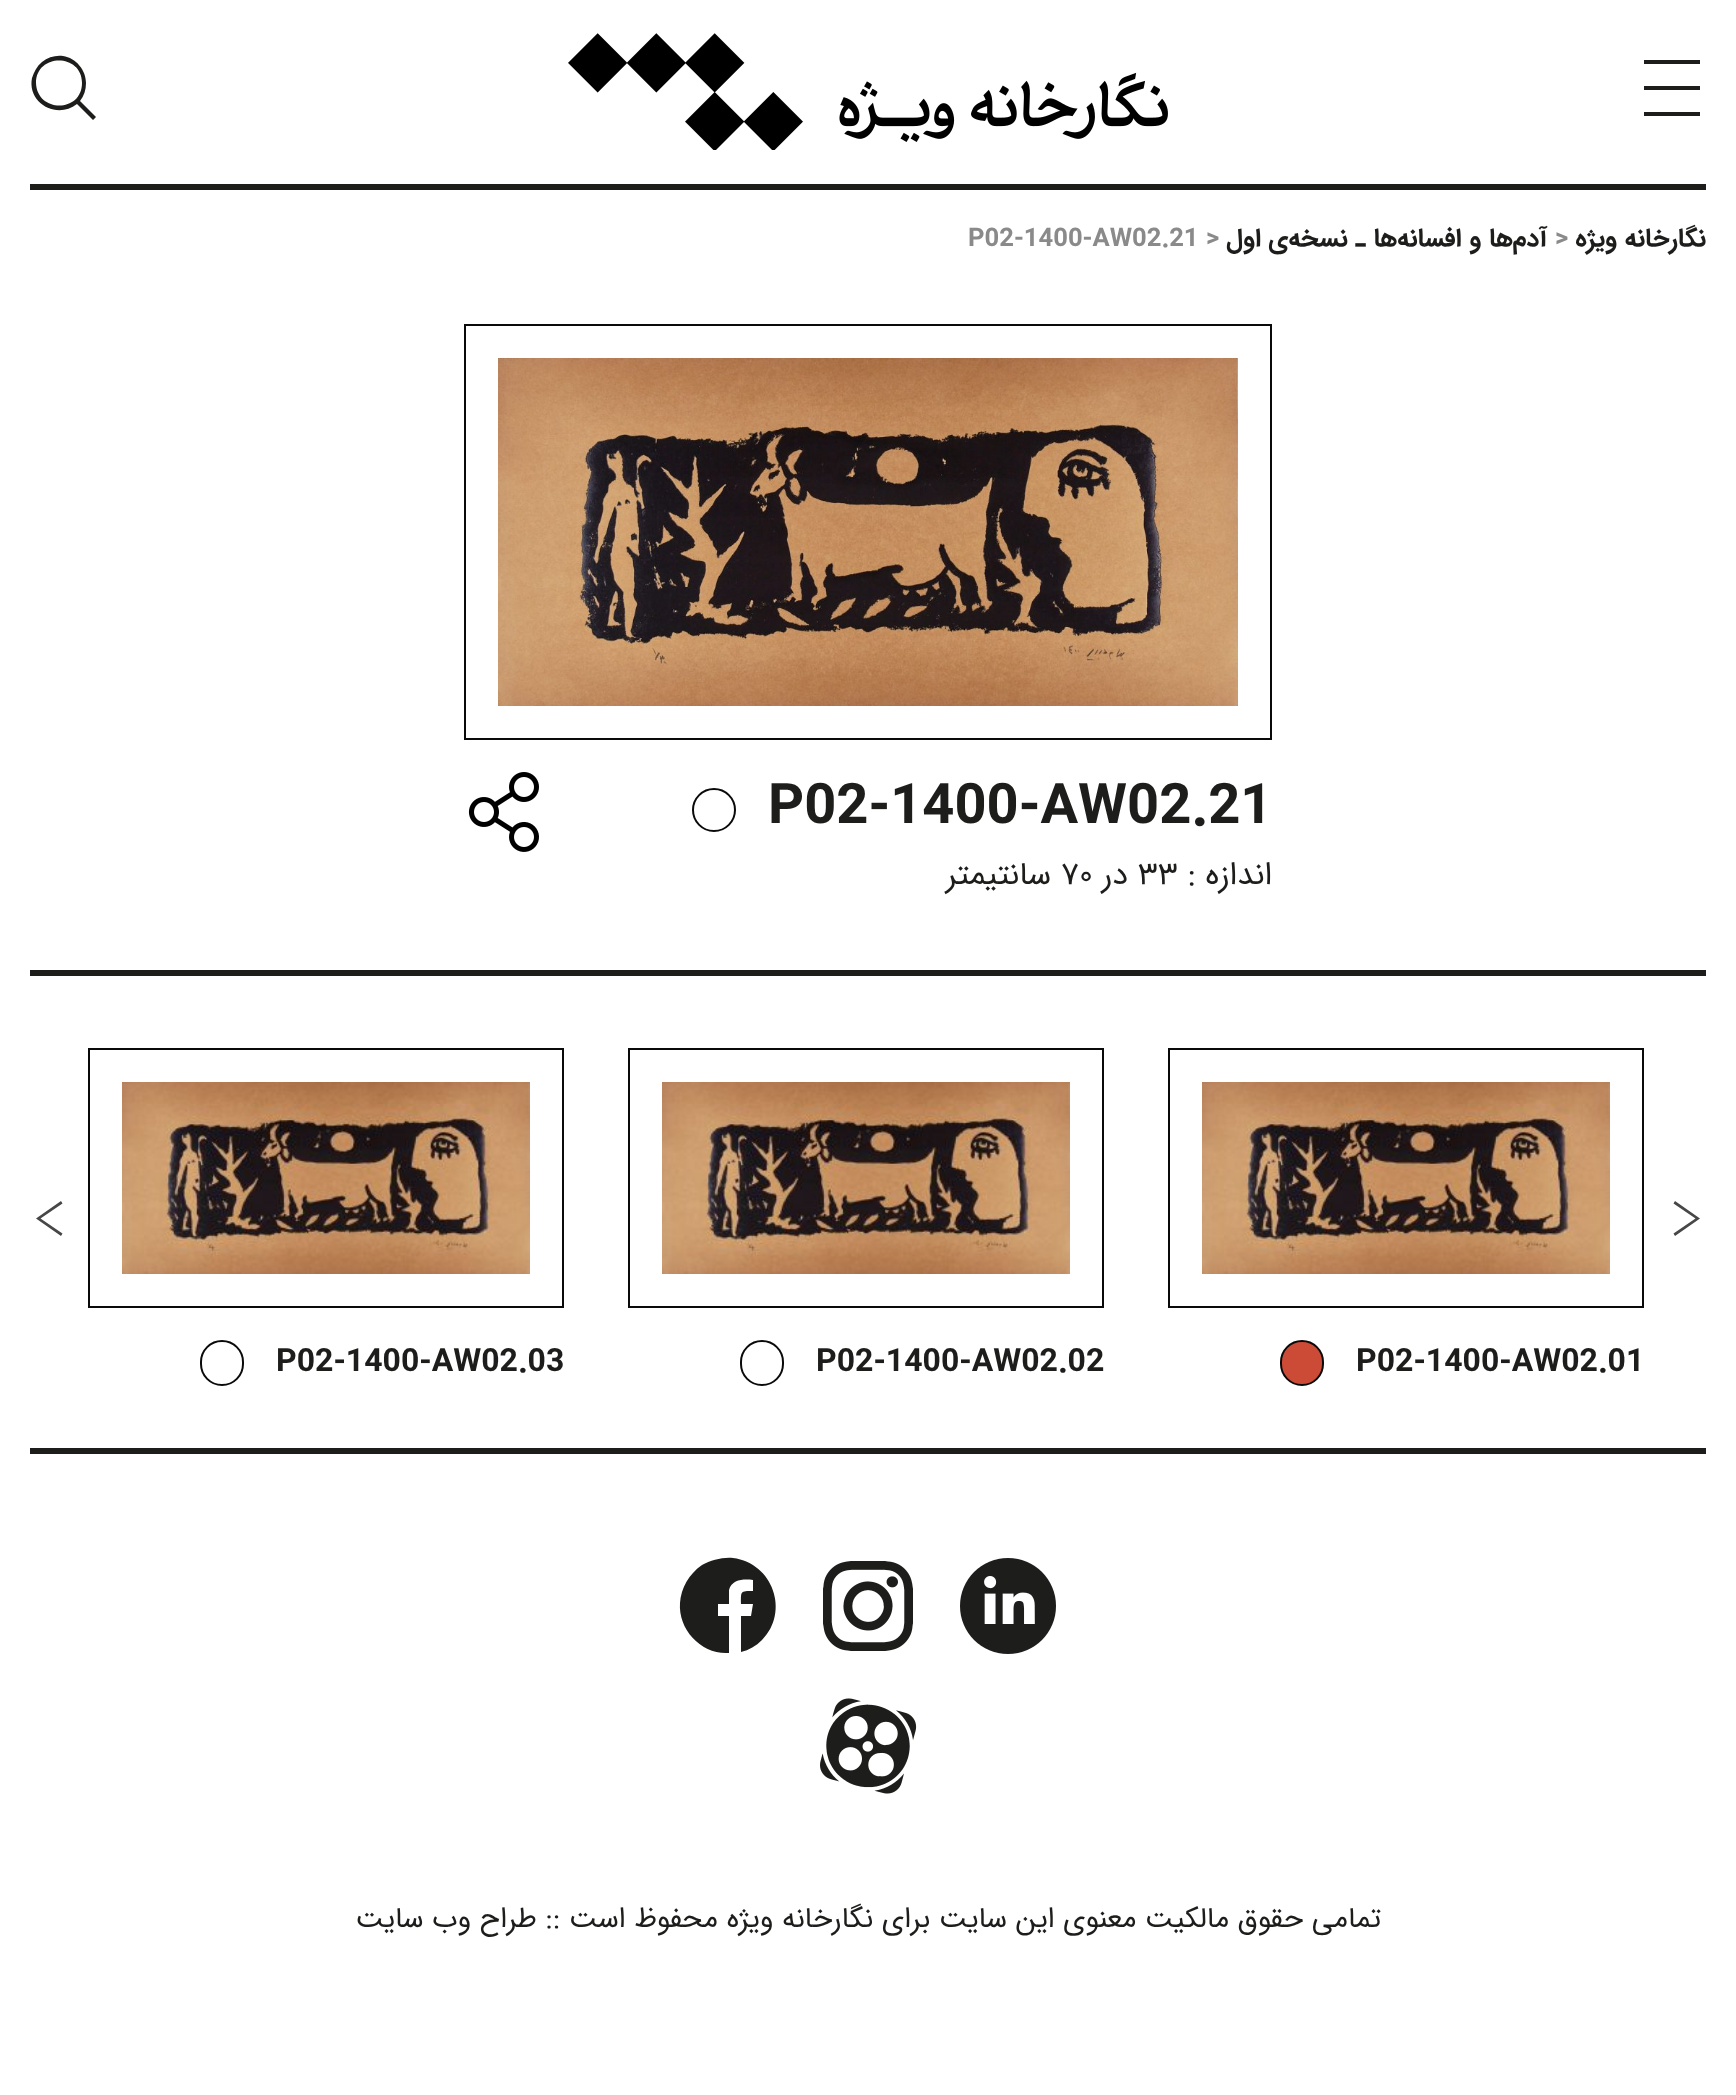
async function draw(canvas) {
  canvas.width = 1736
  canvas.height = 2095
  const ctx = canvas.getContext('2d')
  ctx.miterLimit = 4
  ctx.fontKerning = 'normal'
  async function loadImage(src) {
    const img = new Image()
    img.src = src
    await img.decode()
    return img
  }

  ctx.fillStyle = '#fff'
  ctx.fillRect(0, 0, 1736, 2095)
  ctx.fillStyle = '#1d1d1b'
  ctx.fillRect(30, 184, 1676, 6)
  ctx.beginPath()
  ctx.moveTo(1644, 60)
  ctx.lineTo(1700, 60)
  ctx.lineTo(1700, 64)
  ctx.lineTo(1644, 64)
  ctx.closePath()
  ctx.moveTo(1644, 86)
  ctx.lineTo(1700, 86)
  ctx.lineTo(1700, 90)
  ctx.lineTo(1644, 90)
  ctx.closePath()
  ctx.moveTo(1644, 112)
  ctx.lineTo(1700, 112)
  ctx.lineTo(1700, 116)
  ctx.lineTo(1644, 116)
  ctx.closePath()
  ctx.fill()
  ctx.drawImage(await loadImage('image0.png'), 568, 33, 600, 117)
  ctx.beginPath()
  ctx.moveTo(86, 83)
  ctx.bezierCurveTo(86, 70, 76, 58, 63, 56)
  ctx.bezierCurveTo(56, 55, 48, 57, 42, 62)
  ctx.bezierCurveTo(37, 66, 34, 72, 32, 78)
  ctx.bezierCurveTo(27, 103, 57, 120, 77, 104)
  ctx.lineTo(93, 120)
  ctx.lineTo(96, 117)
  ctx.lineTo(80, 101)
  ctx.bezierCurveTo(84, 96, 86, 90, 86, 83)
  ctx.closePath()
  ctx.moveTo(36, 83)
  ctx.bezierCurveTo(36, 53, 82, 53, 82, 83)
  ctx.bezierCurveTo(82, 113, 37, 113, 36, 83)
  ctx.closePath()
  ctx.fill()
  ctx.direction = 'rtl'
  ctx.font = 'bold 25.6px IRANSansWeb'
  ctx.fillText('نگارخانه ویژه', 1706, 246)
  ctx.direction = 'ltr'
  ctx.fillStyle = '#8a8a8a'
  ctx.fillText('>', 1555, 246)
  ctx.direction = 'rtl'
  ctx.fillStyle = '#1d1d1b'
  ctx.fillText('آدم‌ها و افسانه‌ها ـ نسخه‌ی اول', 1547, 246)
  ctx.direction = 'ltr'
  ctx.fillStyle = '#8a8a8a'
  ctx.fillText('>', 1206, 246)
  ctx.fillText('P02-1400-AW02.21', 968, 246)
  ctx.strokeStyle = '#0a0a0a'
  ctx.lineWidth = 2
  ctx.strokeRect(465, 325, 806, 414)
  ctx.drawImage(await loadImage('image1.png'), 498, 358, 740, 348)
  ctx.font = 'bold 56px IRANSansWeb'
  ctx.fillStyle = '#1d1d1b'
  ctx.fillText('P02-1400-AW02.21', 768, 823)
  ctx.beginPath()
  ctx.arc(714, 810, 21, 0, 2 * Math.PI)
  ctx.stroke()
  ctx.direction = 'rtl'
  ctx.font = '32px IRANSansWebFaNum'
  ctx.fillText('اندازه :', 1272, 884)
  ctx.direction = 'ltr'
  ctx.fillText('۳۳', 1138, 884)
  ctx.direction = 'rtl'
  ctx.fillText('در', 1128, 884)
  ctx.direction = 'ltr'
  ctx.fillText('۷۰', 1061, 884)
  ctx.direction = 'rtl'
  ctx.fillText('سانتیمتر', 1051, 884)
  ctx.drawImage(await loadImage('image2.png'), 468, 772, 71, 80)
  ctx.fillRect(30, 970, 1676, 6)
  ctx.fillStyle = '#474747'
  ctx.beginPath()
  ctx.moveTo(1673.5, 1203.5)
  ctx.lineTo(1695.5, 1218.5)
  ctx.lineTo(1673.5, 1233.5)
  ctx.lineTo(1675, 1236)
  ctx.lineTo(1700, 1218.5)
  ctx.lineTo(1675, 1201)
  ctx.closePath()
  ctx.fill()
  ctx.beginPath()
  ctx.moveTo(61, 1201)
  ctx.lineTo(36, 1218.5)
  ctx.lineTo(61, 1236)
  ctx.lineTo(62.5, 1233.5)
  ctx.lineTo(40.5, 1218.5)
  ctx.lineTo(62.5, 1203.5)
  ctx.closePath()
  ctx.fill()
  ctx.strokeRect(1169, 1049, 474, 258)
  ctx.drawImage(await loadImage('image3.png'), 1202, 1082, 408, 192)
  ctx.direction = 'ltr'
  ctx.font = 'bold 32px IRANSansWeb'
  ctx.fillStyle = '#1d1d1b'
  ctx.fillText('P02-1400-AW02.01', 1356, 1371)
  ctx.fillStyle = '#cc4b37'
  ctx.beginPath()
  ctx.roundRect(1281, 1341, 42, 44, 21)
  ctx.fill()
  ctx.stroke()
  ctx.strokeRect(629, 1049, 474, 258)
  ctx.drawImage(await loadImage('image4.png'), 662, 1082, 408, 192)
  ctx.fillStyle = '#1d1d1b'
  ctx.fillText('P02-1400-AW02.02', 816, 1371)
  ctx.beginPath()
  ctx.roundRect(741, 1341, 42, 44, 21)
  ctx.stroke()
  ctx.strokeRect(89, 1049, 474, 258)
  ctx.drawImage(await loadImage('image5.png'), 122, 1082, 408, 192)
  ctx.fillText('P02-1400-AW02.03', 276, 1371)
  ctx.beginPath()
  ctx.roundRect(201, 1341, 42, 44, 21)
  ctx.stroke()
  ctx.fillRect(30, 1448, 1676, 6)
  ctx.drawImage(await loadImage('image6.png'), 960, 1558, 96, 96)
  ctx.drawImage(await loadImage('image7.png'), 823, 1561, 90, 90)
  ctx.beginPath()
  ctx.moveTo(741, 1652)
  ctx.lineTo(741, 1616)
  ctx.lineTo(751, 1616)
  ctx.lineTo(753, 1604)
  ctx.lineTo(741, 1604)
  ctx.bezierCurveTo(741, 1591, 740, 1591, 753, 1591)
  ctx.lineTo(753, 1580)
  ctx.bezierCurveTo(744, 1579, 732, 1579, 729, 1590)
  ctx.lineTo(729, 1604)
  ctx.lineTo(718, 1604)
  ctx.lineTo(718, 1616)
  ctx.lineTo(729, 1616)
  ctx.lineTo(729, 1653)
  ctx.bezierCurveTo(702, 1655, 678, 1630, 680, 1603)
  ctx.bezierCurveTo(681, 1588, 689, 1574, 702, 1565)
  ctx.bezierCurveTo(711, 1560, 723, 1557, 733, 1558)
  ctx.bezierCurveTo(773, 1563, 790, 1612, 762, 1640)
  ctx.bezierCurveTo(756, 1646, 749, 1650, 741, 1652)
  ctx.closePath()
  ctx.fill()
  ctx.drawImage(await loadImage('image8.png'), 820, 1698, 97, 96)
  ctx.direction = 'rtl'
  ctx.font = '28.8px IRANSansWebFaNum'
  ctx.fillText('تمامی حقوق مالکیت معنوی این ‌سایت برای نگارخانه ویژه محفوظ است ::', 1381, 1927)
  ctx.fillText('طراح وب سایت', 537, 1927)
}

draw(document.querySelector('canvas'))
